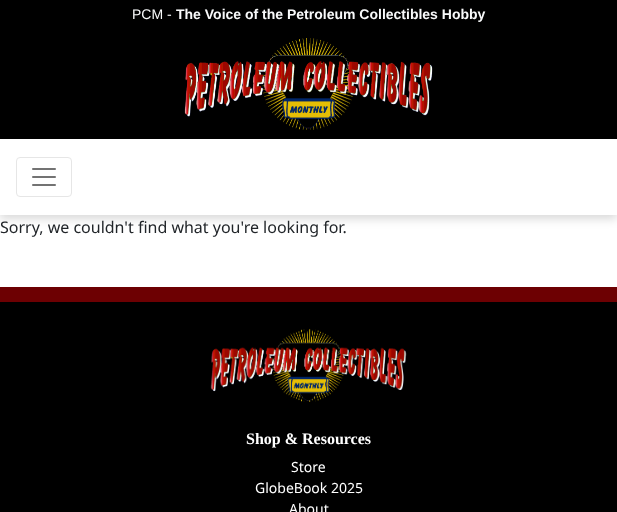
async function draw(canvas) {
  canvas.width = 617
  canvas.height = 512
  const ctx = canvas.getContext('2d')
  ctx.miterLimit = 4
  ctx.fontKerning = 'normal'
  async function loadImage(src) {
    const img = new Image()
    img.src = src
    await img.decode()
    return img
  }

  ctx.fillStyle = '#fff'
  ctx.fillRect(0, 0, 617, 512)
  ctx.fillStyle = '#000'
  ctx.fillRect(0, 0, 617, 29)
  ctx.font = '14px Liberation Sans'
  ctx.fillStyle = '#f8f9fa'
  ctx.fillText('PCM -', 132, 19)
  ctx.font = 'bold 14px Liberation Sans'
  ctx.fillText('The Voice of the Petroleum Collectibles Hobby', 176, 19)
  ctx.save()
  ctx.beginPath()
  ctx.moveTo(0, 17)
  ctx.lineTo(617, 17)
  ctx.lineTo(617, 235)
  ctx.lineTo(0, 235)
  ctx.closePath()
  ctx.moveTo(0, 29)
  ctx.lineTo(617, 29)
  ctx.lineTo(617, 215)
  ctx.lineTo(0, 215)
  ctx.closePath()
  ctx.clip('evenodd')
  ctx.fillStyle = '#00000026'
  ctx.filter = 'blur(5px)'
  ctx.beginPath()
  ctx.rect(0, 33, 617, 186)
  ctx.fill()
  ctx.filter = 'none'
  ctx.restore()
  ctx.fillStyle = '#000'
  ctx.fillRect(0, 29, 617, 110)
  ctx.drawImage(await loadImage('image0.png'), 184, 38, 249, 92)
  ctx.beginPath()
  ctx.roundRect(16.5, 157.5, 55, 39, 3.5)
  ctx.strokeStyle = '#e6e6e6'
  ctx.stroke()
  ctx.drawImage(await loadImage('image1.png'), 32, 168, 24, 18)
  ctx.font = '16px Noto Sans'
  ctx.fillStyle = '#212529'
  ctx.fillText('Sorry, we couldn\'t find what you\'re looking for.', 0, 233)
  ctx.fillStyle = '#000'
  ctx.fillRect(0, 302, 617, 210)
  ctx.fillStyle = '#6d0002'
  ctx.fillRect(0, 287, 617, 15)
  ctx.drawImage(await loadImage('image2.png'), 210, 328, 197, 74)
  ctx.font = 'bold 16px Liberation Serif'
  ctx.fillStyle = '#fff'
  ctx.fillText('Shop & Resources', 246, 444)
  ctx.font = '14px Noto Sans'
  ctx.fillText('Store', 291, 472)
  ctx.fillText('GlobeBook 2025', 255, 493)
  ctx.fillText('About', 289, 514)
}

draw(document.querySelector('canvas'))
